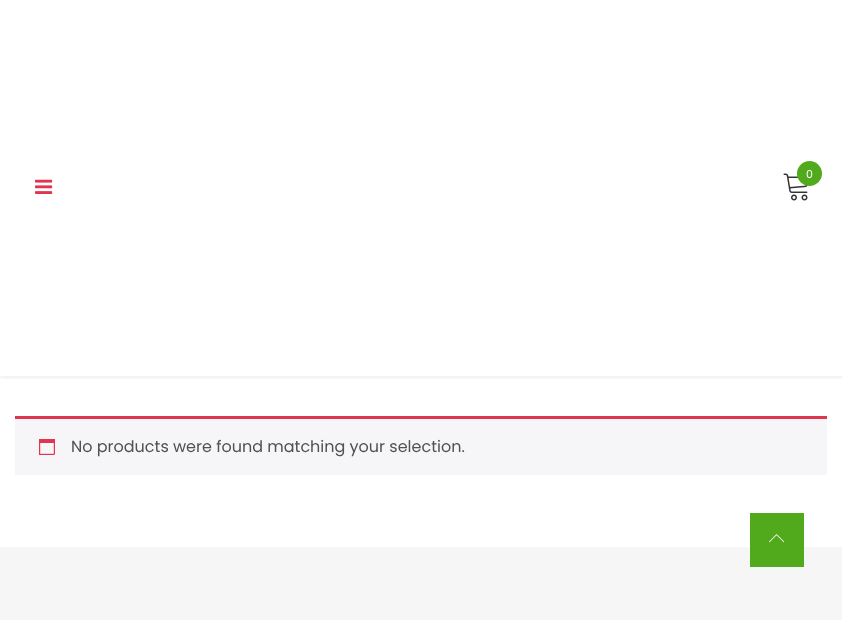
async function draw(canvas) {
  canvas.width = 842
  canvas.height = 620
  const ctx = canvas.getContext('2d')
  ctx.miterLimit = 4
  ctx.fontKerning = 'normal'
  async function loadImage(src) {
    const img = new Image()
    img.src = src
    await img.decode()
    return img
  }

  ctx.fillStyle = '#fff'
  ctx.fillRect(0, 0, 842, 620)
  ctx.save()
  ctx.beginPath()
  ctx.rect(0, 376, 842, 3)
  ctx.clip()
  ctx.fillStyle = '#00000012'
  ctx.filter = 'blur(2.5px)'
  ctx.beginPath()
  ctx.rect(0, 0, 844, 378)
  ctx.fill()
  ctx.filter = 'none'
  ctx.restore()
  ctx.drawImage(await loadImage('image0.png'), 783, 173, 25, 28)
  ctx.fillStyle = '#51aa1b'
  ctx.beginPath()
  ctx.arc(809.5, 173.5, 12.5, 0, 2 * Math.PI)
  ctx.fill()
  ctx.font = '11px Poppins'
  ctx.fillStyle = '#fff'
  ctx.fillText('0', 806, 178)
  ctx.drawImage(await loadImage('image1.png'), 35, 179, 18, 15)
  ctx.fillStyle = '#f6f5f8'
  ctx.fillRect(15, 419, 812, 56)
  ctx.fillStyle = '#df3550'
  ctx.fillRect(15, 416, 812, 3)
  ctx.drawImage(await loadImage('image2.png'), 39, 439, 16, 16)
  ctx.font = '16px Poppins'
  ctx.fillStyle = '#515151'
  ctx.fillText('No products were found matching your selection.', 71, 452)
  ctx.fillStyle = '#f6f6f6'
  ctx.fillRect(0, 547, 842, 73)
  ctx.fillStyle = '#51aa1b'
  ctx.fillRect(750, 513, 54, 54)
  ctx.drawImage(await loadImage('image3.png'), 769, 534, 16, 9)
}

draw(document.querySelector('canvas'))
